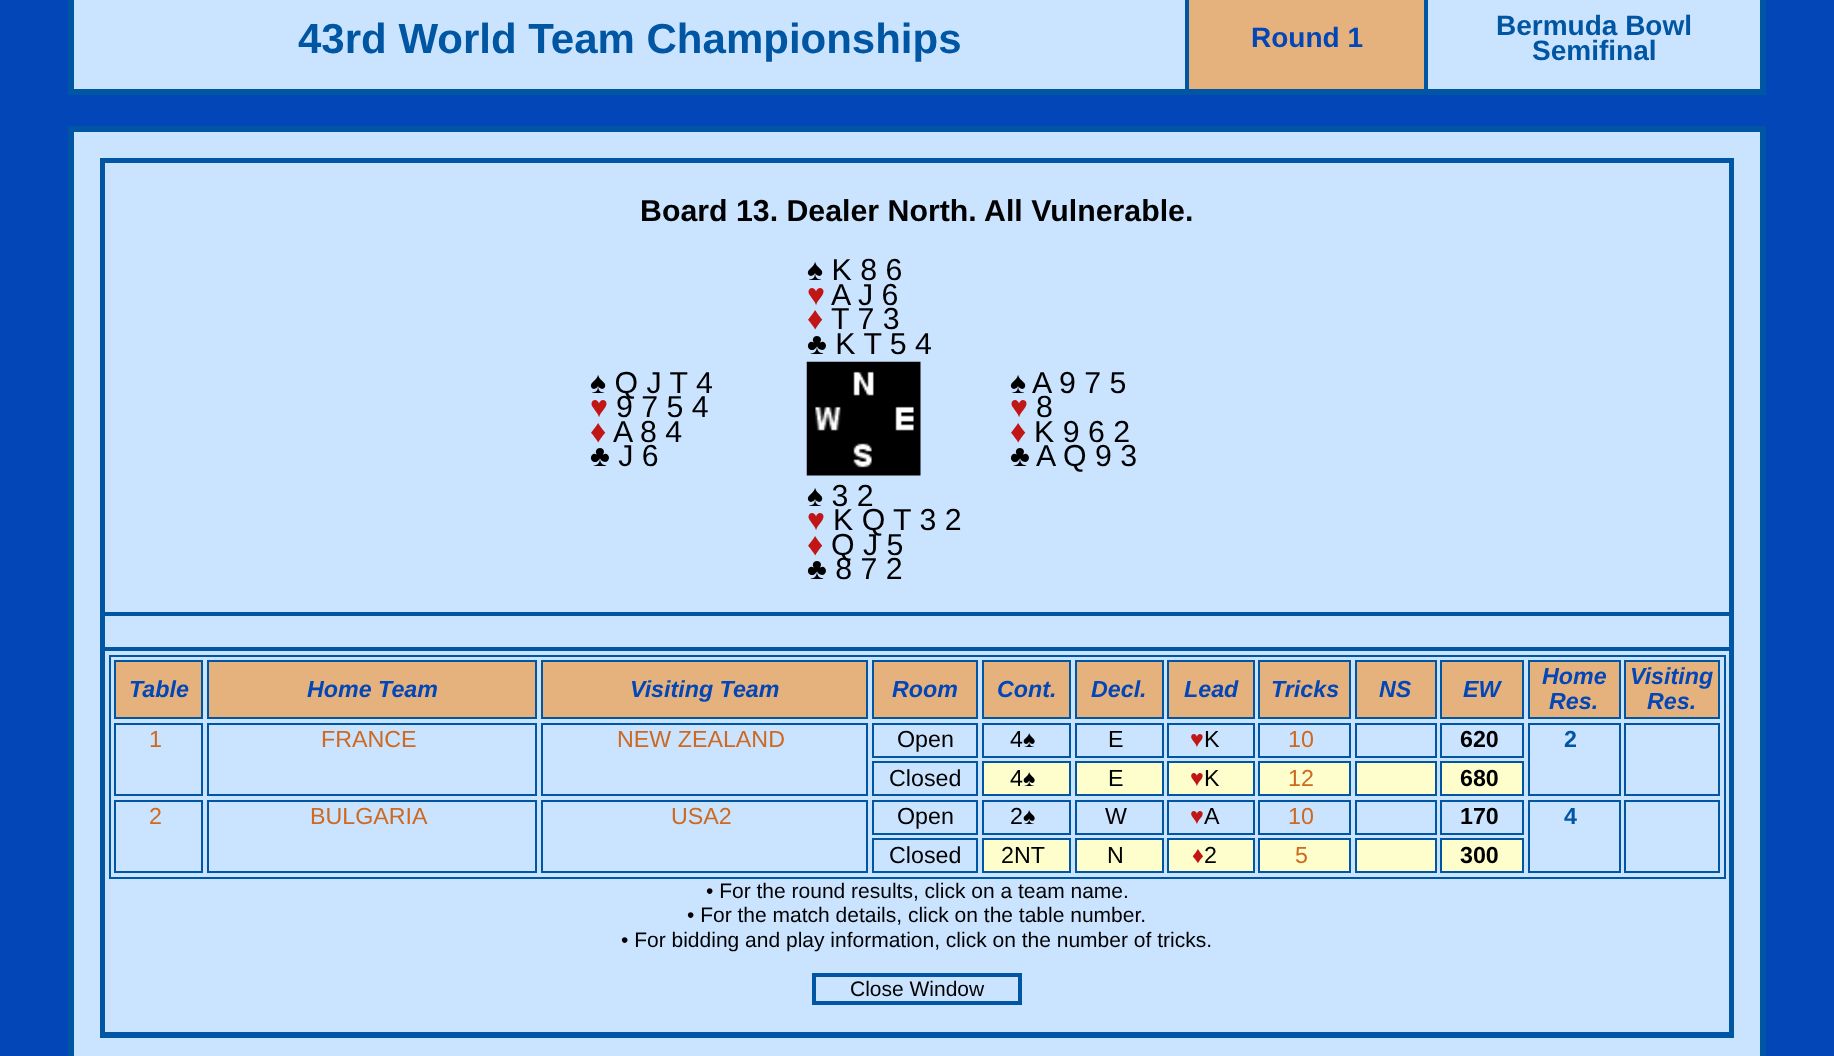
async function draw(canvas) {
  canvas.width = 1834
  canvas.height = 1056
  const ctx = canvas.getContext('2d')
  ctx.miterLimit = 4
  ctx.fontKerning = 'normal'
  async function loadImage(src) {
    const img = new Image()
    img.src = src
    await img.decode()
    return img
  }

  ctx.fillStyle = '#0246b7'
  ctx.fillRect(0, 0, 1834, 1056)
  ctx.strokeStyle = '#0056a2'
  ctx.lineWidth = 4
  ctx.strokeRect(70, -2, 1694, 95)
  ctx.fillStyle = '#cae3ff'
  ctx.beginPath()
  ctx.rect(73, -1, 1113, 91)
  ctx.fill()
  ctx.lineWidth = 2
  ctx.stroke()
  ctx.font = 'bold 42px Liberation Sans'
  ctx.fillStyle = '#0056a2'
  ctx.fillText('43rd World Team Championships', 298, 53)
  ctx.fillStyle = '#e5b17c'
  ctx.beginPath()
  ctx.rect(1188, -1, 237, 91)
  ctx.fill()
  ctx.stroke()
  ctx.font = 'bold 28px Liberation Sans'
  ctx.fillStyle = '#0246b7'
  ctx.fillText('Round 1', 1251, 47)
  ctx.fillStyle = '#cae3ff'
  ctx.beginPath()
  ctx.rect(1427, -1, 334, 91)
  ctx.fill()
  ctx.stroke()
  ctx.fillStyle = '#0056a2'
  ctx.fillText('Bermuda Bowl', 1496, 35)
  ctx.fillText('Semifinal', 1532, 60)
  ctx.fillStyle = '#cae3ff'
  ctx.fillRect(74, 132, 1686, 924)
  ctx.lineWidth = 4
  ctx.strokeRect(70, 128, 1694, 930)
  ctx.lineWidth = 2
  ctx.strokeRect(73, 131, 1688, 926)
  ctx.lineWidth = 4
  ctx.strokeRect(102, 160, 1630, 876)
  ctx.lineWidth = 2
  ctx.strokeRect(104, 162, 1626, 451)
  ctx.font = 'bold 30.3px Liberation Sans'
  ctx.fillStyle = '#000'
  ctx.fillText('Board 13. Dealer North. All Vulnerable.', 640, 221)
  ctx.font = '30.3px Liberation Sans'
  ctx.fillText('♠ K 8 6', 807, 280)
  ctx.fillStyle = '#c01616'
  ctx.fillText('♥', 807, 305)
  ctx.fillStyle = '#000'
  ctx.fillText('A J 6', 831, 305)
  ctx.font = '32px Liberation Sans'
  ctx.fillStyle = '#c01616'
  ctx.fillText('♦', 807, 329)
  ctx.font = '30.3px Liberation Sans'
  ctx.fillStyle = '#000'
  ctx.fillText('T 7 3', 831, 329)
  ctx.fillText('♣ K T 5 4', 807, 354)
  ctx.fillText('♠ Q J T 4', 590, 393)
  ctx.fillStyle = '#c01616'
  ctx.fillText('♥', 590, 417)
  ctx.fillStyle = '#000'
  ctx.fillText('9 7 5 4', 616, 417)
  ctx.font = '32px Liberation Sans'
  ctx.fillStyle = '#c01616'
  ctx.fillText('♦', 590, 442)
  ctx.font = '30.3px Liberation Sans'
  ctx.fillStyle = '#000'
  ctx.fillText('A 8 4', 613, 442)
  ctx.fillText('♣ J 6', 590, 466)
  ctx.drawImage(await loadImage('image0.png'), 806, 361, 115, 115)
  ctx.fillText('♠', 1010, 393)
  ctx.fillText('A 9 7 5', 1032, 393)
  ctx.fillStyle = '#c01616'
  ctx.fillText('♥', 1010, 417)
  ctx.fillStyle = '#000'
  ctx.fillText('8', 1036, 417)
  ctx.font = '32px Liberation Sans'
  ctx.fillStyle = '#c01616'
  ctx.fillText('♦', 1010, 442)
  ctx.font = '30.3px Liberation Sans'
  ctx.fillStyle = '#000'
  ctx.fillText('K 9 6 2', 1034, 442)
  ctx.fillText('♣', 1010, 466)
  ctx.fillText('A Q 9 3', 1036, 466)
  ctx.fillText('♠ 3 2', 807, 506)
  ctx.fillStyle = '#c01616'
  ctx.fillText('♥', 807, 530)
  ctx.fillStyle = '#000'
  ctx.fillText('K Q T 3 2', 833, 530)
  ctx.font = '32px Liberation Sans'
  ctx.fillStyle = '#c01616'
  ctx.fillText('♦', 807, 555)
  ctx.font = '30.3px Liberation Sans'
  ctx.fillStyle = '#000'
  ctx.fillText('Q J 5', 831, 555)
  ctx.fillText('♣ 8 7 2', 807, 579)
  ctx.strokeRect(104, 615, 1626, 33)
  ctx.strokeRect(104, 650, 1626, 383)
  ctx.strokeRect(110, 656, 1615, 222)
  ctx.fillStyle = '#e5b17c'
  ctx.beginPath()
  ctx.rect(115, 661, 87, 57)
  ctx.fill()
  ctx.stroke()
  ctx.font = 'italic bold 23.25px Liberation Sans'
  ctx.fillStyle = '#0246b7'
  ctx.fillText('Table', 129, 697)
  ctx.fillStyle = '#e5b17c'
  ctx.beginPath()
  ctx.rect(208, 661, 328, 57)
  ctx.fill()
  ctx.stroke()
  ctx.fillStyle = '#0246b7'
  ctx.fillText('Home Team', 307, 697)
  ctx.fillStyle = '#e5b17c'
  ctx.beginPath()
  ctx.rect(542, 661, 325, 57)
  ctx.fill()
  ctx.stroke()
  ctx.fillStyle = '#0246b7'
  ctx.fillText('Visiting Team', 630, 697)
  ctx.fillStyle = '#e5b17c'
  ctx.beginPath()
  ctx.rect(873, 661, 104, 57)
  ctx.fill()
  ctx.stroke()
  ctx.fillStyle = '#0246b7'
  ctx.fillText('Room', 892, 697)
  ctx.fillStyle = '#e5b17c'
  ctx.beginPath()
  ctx.rect(983, 661, 87, 57)
  ctx.fill()
  ctx.stroke()
  ctx.fillStyle = '#0246b7'
  ctx.fillText('Cont.', 997, 697)
  ctx.fillStyle = '#e5b17c'
  ctx.beginPath()
  ctx.rect(1076, 661, 87, 57)
  ctx.fill()
  ctx.stroke()
  ctx.fillStyle = '#0246b7'
  ctx.fillText('Decl.', 1091, 697)
  ctx.fillStyle = '#e5b17c'
  ctx.beginPath()
  ctx.rect(1168, 661, 86, 57)
  ctx.fill()
  ctx.stroke()
  ctx.fillStyle = '#0246b7'
  ctx.fillText('Lead', 1184, 697)
  ctx.fillStyle = '#e5b17c'
  ctx.beginPath()
  ctx.rect(1259, 661, 91, 57)
  ctx.fill()
  ctx.stroke()
  ctx.fillStyle = '#0246b7'
  ctx.fillText('Tricks', 1271, 697)
  ctx.fillStyle = '#e5b17c'
  ctx.beginPath()
  ctx.rect(1356, 661, 80, 57)
  ctx.fill()
  ctx.stroke()
  ctx.fillStyle = '#0246b7'
  ctx.fillText('NS', 1379, 697)
  ctx.fillStyle = '#e5b17c'
  ctx.beginPath()
  ctx.rect(1441, 661, 82, 57)
  ctx.fill()
  ctx.stroke()
  ctx.fillStyle = '#0246b7'
  ctx.fillText('EW', 1463, 697)
  ctx.fillStyle = '#e5b17c'
  ctx.beginPath()
  ctx.rect(1529, 661, 91, 57)
  ctx.fill()
  ctx.stroke()
  ctx.fillStyle = '#0246b7'
  ctx.fillText('Home', 1542, 684)
  ctx.fillText('Res.', 1549, 709)
  ctx.fillStyle = '#e5b17c'
  ctx.beginPath()
  ctx.rect(1625, 661, 94, 57)
  ctx.fill()
  ctx.stroke()
  ctx.fillStyle = '#0246b7'
  ctx.fillText('Visiting', 1630, 684)
  ctx.fillText('Res.', 1647, 709)
  ctx.strokeRect(115, 724, 87, 71)
  ctx.font = '23.25px Liberation Sans'
  ctx.fillStyle = '#cf691f'
  ctx.fillText('1', 149, 747)
  ctx.strokeRect(208, 724, 328, 71)
  ctx.fillText('FRANCE', 321, 747)
  ctx.strokeRect(542, 724, 325, 71)
  ctx.fillText('NEW ZEALAND', 617, 747)
  ctx.strokeRect(873, 724, 104, 33)
  ctx.fillStyle = '#000'
  ctx.fillText('Open', 897, 747)
  ctx.strokeRect(983, 724, 87, 33)
  ctx.fillText('4♠', 1010, 747)
  ctx.strokeRect(1076, 724, 87, 33)
  ctx.fillText('E', 1108, 747)
  ctx.strokeRect(1168, 724, 86, 33)
  ctx.fillStyle = '#c01616'
  ctx.fillText('♥', 1190, 747)
  ctx.fillStyle = '#000'
  ctx.fillText('K', 1204, 747)
  ctx.strokeRect(1259, 724, 91, 33)
  ctx.fillStyle = '#cf691f'
  ctx.fillText('10', 1288, 747)
  ctx.strokeRect(1356, 724, 80, 33)
  ctx.strokeRect(1441, 724, 82, 33)
  ctx.font = 'bold 23.25px Liberation Sans'
  ctx.fillStyle = '#000'
  ctx.fillText('620', 1460, 747)
  ctx.strokeRect(1529, 724, 91, 71)
  ctx.fillStyle = '#0056a2'
  ctx.fillText('2', 1564, 747)
  ctx.strokeRect(1625, 724, 94, 71)
  ctx.strokeRect(873, 762, 104, 33)
  ctx.font = '23.25px Liberation Sans'
  ctx.fillStyle = '#000'
  ctx.fillText('Closed', 889, 786)
  ctx.fillStyle = '#fdfecc'
  ctx.beginPath()
  ctx.rect(983, 762, 87, 33)
  ctx.fill()
  ctx.stroke()
  ctx.fillStyle = '#000'
  ctx.fillText('4♠', 1010, 786)
  ctx.fillStyle = '#fdfecc'
  ctx.beginPath()
  ctx.rect(1076, 762, 87, 33)
  ctx.fill()
  ctx.stroke()
  ctx.fillStyle = '#000'
  ctx.fillText('E', 1108, 786)
  ctx.fillStyle = '#fdfecc'
  ctx.beginPath()
  ctx.rect(1168, 762, 86, 33)
  ctx.fill()
  ctx.stroke()
  ctx.fillStyle = '#c01616'
  ctx.fillText('♥', 1190, 786)
  ctx.fillStyle = '#000'
  ctx.fillText('K', 1204, 786)
  ctx.fillStyle = '#fdfecc'
  ctx.beginPath()
  ctx.rect(1259, 762, 91, 33)
  ctx.fill()
  ctx.stroke()
  ctx.fillStyle = '#cf691f'
  ctx.fillText('12', 1288, 786)
  ctx.fillStyle = '#fdfecc'
  ctx.beginPath()
  ctx.rect(1356, 762, 80, 33)
  ctx.fill()
  ctx.stroke()
  ctx.beginPath()
  ctx.rect(1441, 762, 82, 33)
  ctx.fill()
  ctx.stroke()
  ctx.font = 'bold 23.25px Liberation Sans'
  ctx.fillStyle = '#000'
  ctx.fillText('680', 1460, 786)
  ctx.strokeRect(115, 801, 87, 71)
  ctx.font = '23.25px Liberation Sans'
  ctx.fillStyle = '#cf691f'
  ctx.fillText('2', 149, 824)
  ctx.strokeRect(208, 801, 328, 71)
  ctx.fillText('BULGARIA', 310, 824)
  ctx.strokeRect(542, 801, 325, 71)
  ctx.fillText('USA2', 671, 824)
  ctx.strokeRect(873, 801, 104, 33)
  ctx.fillStyle = '#000'
  ctx.fillText('Open', 897, 824)
  ctx.strokeRect(983, 801, 87, 33)
  ctx.fillText('2♠', 1010, 824)
  ctx.strokeRect(1076, 801, 87, 33)
  ctx.fillText('W', 1105, 824)
  ctx.strokeRect(1168, 801, 86, 33)
  ctx.fillStyle = '#c01616'
  ctx.fillText('♥', 1190, 824)
  ctx.fillStyle = '#000'
  ctx.fillText('A', 1204, 824)
  ctx.strokeRect(1259, 801, 91, 33)
  ctx.fillStyle = '#cf691f'
  ctx.fillText('10', 1288, 824)
  ctx.strokeRect(1356, 801, 80, 33)
  ctx.strokeRect(1441, 801, 82, 33)
  ctx.font = 'bold 23.25px Liberation Sans'
  ctx.fillStyle = '#000'
  ctx.fillText('170', 1460, 824)
  ctx.strokeRect(1529, 801, 91, 71)
  ctx.fillStyle = '#0056a2'
  ctx.fillText('4', 1564, 824)
  ctx.strokeRect(1625, 801, 94, 71)
  ctx.strokeRect(873, 839, 104, 33)
  ctx.font = '23.25px Liberation Sans'
  ctx.fillStyle = '#000'
  ctx.fillText('Closed', 889, 863)
  ctx.fillStyle = '#fdfecc'
  ctx.beginPath()
  ctx.rect(983, 839, 87, 33)
  ctx.fill()
  ctx.stroke()
  ctx.fillStyle = '#000'
  ctx.fillText('2NT', 1001, 863)
  ctx.fillStyle = '#fdfecc'
  ctx.beginPath()
  ctx.rect(1076, 839, 87, 33)
  ctx.fill()
  ctx.stroke()
  ctx.fillStyle = '#000'
  ctx.fillText('N', 1107, 863)
  ctx.fillStyle = '#fdfecc'
  ctx.beginPath()
  ctx.rect(1168, 839, 86, 33)
  ctx.fill()
  ctx.stroke()
  ctx.fillStyle = '#c01616'
  ctx.fillText('♦', 1192, 863)
  ctx.fillStyle = '#000'
  ctx.fillText('2', 1204, 863)
  ctx.fillStyle = '#fdfecc'
  ctx.beginPath()
  ctx.rect(1259, 839, 91, 33)
  ctx.fill()
  ctx.stroke()
  ctx.fillStyle = '#cf691f'
  ctx.fillText('5', 1295, 863)
  ctx.fillStyle = '#fdfecc'
  ctx.beginPath()
  ctx.rect(1356, 839, 80, 33)
  ctx.fill()
  ctx.stroke()
  ctx.beginPath()
  ctx.rect(1441, 839, 82, 33)
  ctx.fill()
  ctx.stroke()
  ctx.font = 'bold 23.25px Liberation Sans'
  ctx.fillStyle = '#000'
  ctx.fillText('300', 1460, 863)
  ctx.font = '21px Liberation Sans'
  ctx.fillText('• For the round results, click on a team name.', 706, 898)
  ctx.fillText('• For the match details, click on the table number.', 687, 922)
  ctx.fillText('• For bidding and play information, click on the number of tricks.', 621, 947)
  ctx.strokeRect(813, 974, 208, 30)
  ctx.strokeRect(815, 976, 204, 26)
  ctx.fillText('Close Window', 850, 996)
}

draw(document.querySelector('canvas'))
